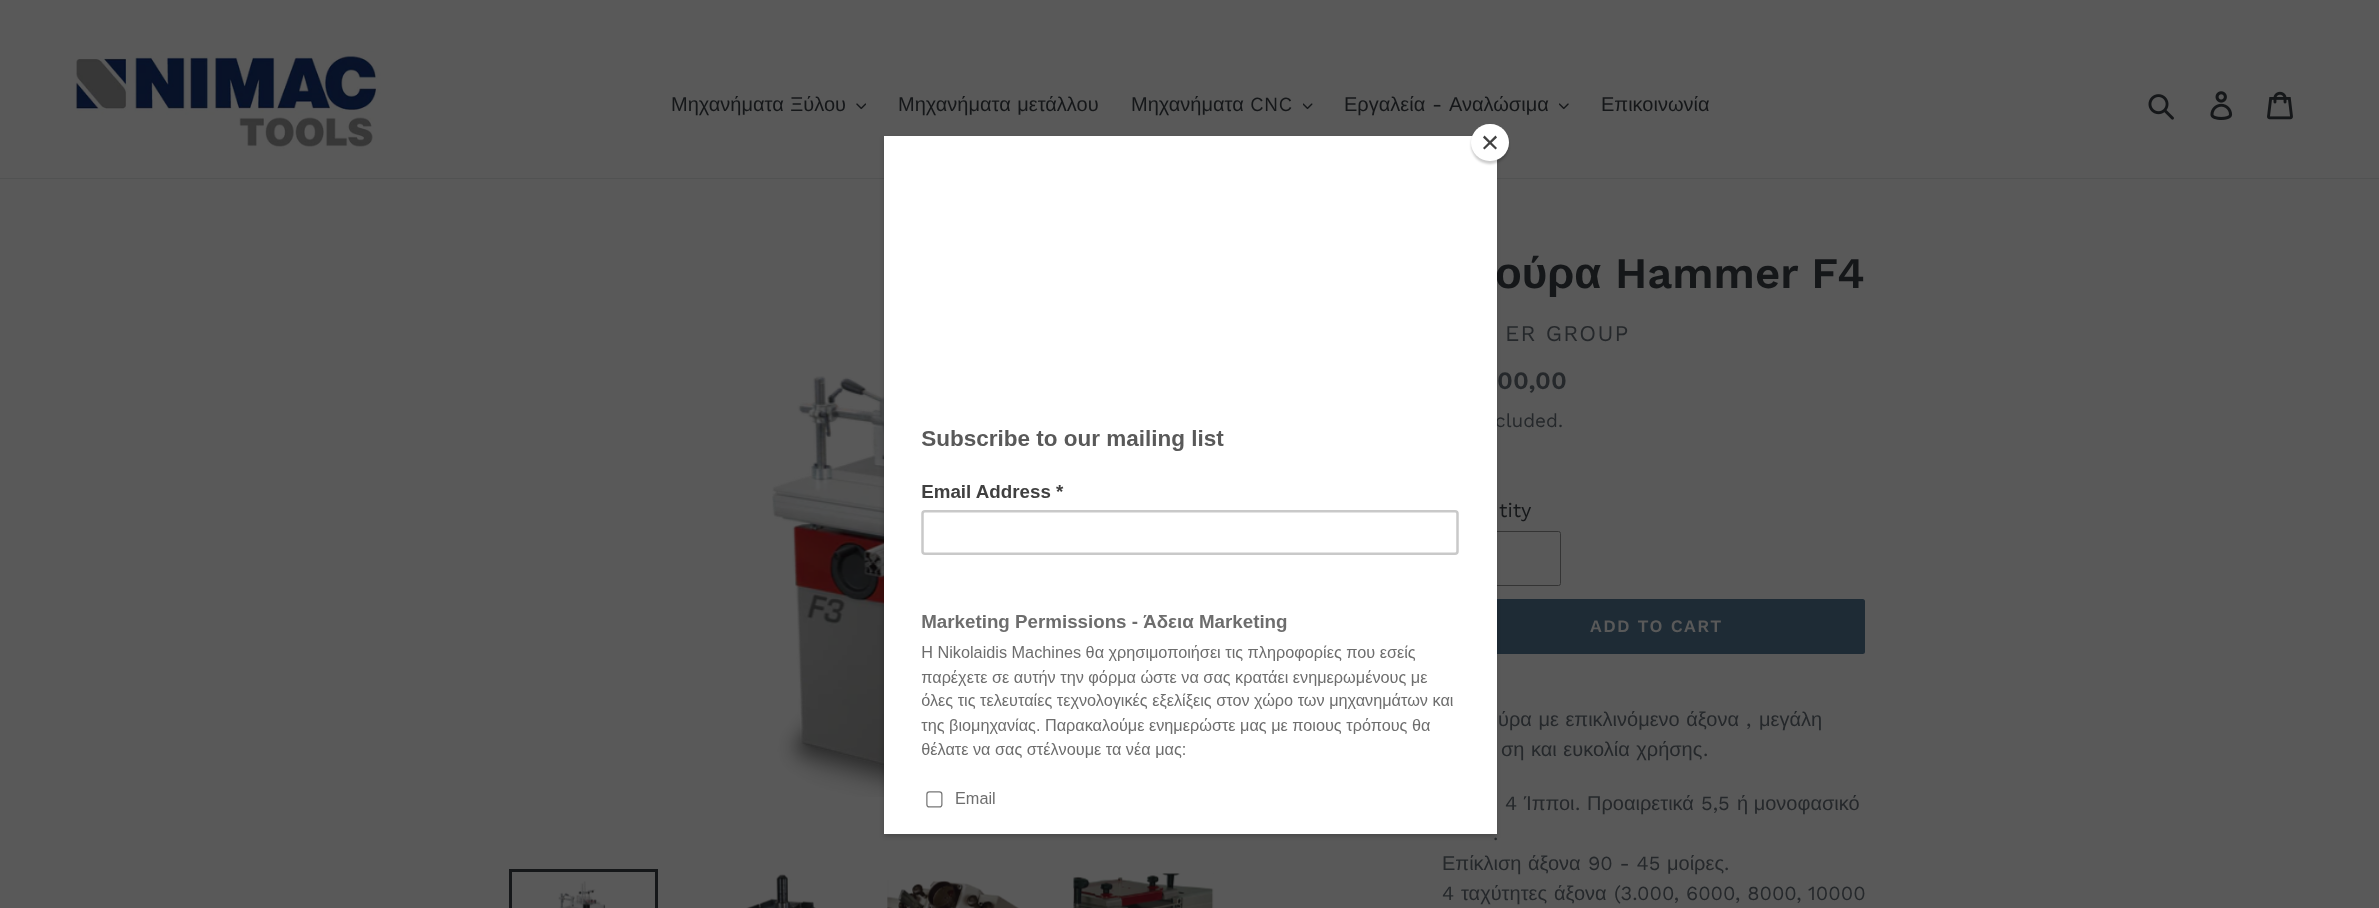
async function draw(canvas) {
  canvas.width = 2379
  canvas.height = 908
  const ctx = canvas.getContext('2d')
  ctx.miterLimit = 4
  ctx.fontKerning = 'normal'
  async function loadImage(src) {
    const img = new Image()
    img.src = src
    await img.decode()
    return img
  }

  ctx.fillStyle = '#595959'
  ctx.fillRect(0, 0, 2379, 908)
  ctx.fillStyle = '#515252'
  ctx.fillRect(0, 178, 2379, 1)
  ctx.drawImage(await loadImage('image0.png'), 75, 51, 306, 98)
  ctx.wordSpacing = '1px'
  ctx.font = '20px Liberation Sans'
  ctx.fillStyle = '#151719'
  ctx.fillText('Μηχανήματα Ξύλου', 671, 111)
  ctx.drawImage(await loadImage('image1.png'), 856, 103, 10, 7)
  ctx.fillText('Μηχανήματα μετάλλου', 898, 111)
  ctx.wordSpacing = '0px'
  ctx.fillText('Μηχανήματα', 1131, 111)
  ctx.font = '20px Work Sans'
  ctx.fillText('CNC', 1250, 111)
  ctx.drawImage(await loadImage('image2.png'), 1303, 103, 10, 7)
  ctx.font = '20px Liberation Sans'
  ctx.fillText('Εργαλεία', 1344, 111)
  ctx.font = '20px Work Sans'
  ctx.fillText('-', 1432, 111)
  ctx.font = '20px Liberation Sans'
  ctx.fillText('Αναλώσιμα', 1449, 111)
  ctx.drawImage(await loadImage('image3.png'), 1559, 103, 10, 7)
  ctx.fillText('Επικοινωνία', 1601, 111)
  ctx.drawImage(await loadImage('image4.png'), 2148, 94, 26, 26)
  ctx.drawImage(await loadImage('image5.png'), 2210, 91, 23, 29)
  ctx.drawImage(await loadImage('image6.png'), 2267, 91, 26, 29)
  ctx.drawImage(await loadImage('image8.png'), 772, 376, 112, 421)
  ctx.beginPath()
  ctx.roundRect(1449.5, 531.5, 111, 54, 2)
  ctx.strokeStyle = '#343434'
  ctx.stroke()
  ctx.fillStyle = '#1e2b35'
  ctx.beginPath()
  ctx.roundRect(1449, 599, 416, 55, 2.5)
  ctx.fill()
  ctx.fillStyle = '#00000033'
  ctx.filter = 'blur(2.5px)'
  ctx.beginPath()
  ctx.rect(884, 139, 612, 697)
  ctx.fill()
  ctx.filter = 'none'
  ctx.font = 'bold 43.75px Liberation Sans'
  ctx.fillStyle = '#151719'
  ctx.fillText('ούρα', 1495, 288)
  ctx.font = '19px Work Sans'
  ctx.fillStyle = '#25282b'
  ctx.fillText('cluded.', 1495, 427)
  ctx.drawImage(await loadImage('image7.png'), 884, 136, 613, 698)
  ctx.fillStyle = '#00000033'
  ctx.filter = 'blur(1px)'
  ctx.beginPath()
  ctx.roundRect(1471, 126, 38, 38, 19)
  ctx.fill()
  ctx.filter = 'none'
  ctx.fillStyle = '#fff'
  ctx.beginPath()
  ctx.roundRect(1471, 124, 38, 37, 18.5)
  ctx.fill()
  ctx.fillStyle = '#414141'
  ctx.beginPath()
  ctx.moveTo(1495.5, 135.5)
  ctx.lineTo(1497, 137.5)
  ctx.lineTo(1484.5, 149.5)
  ctx.lineTo(1483, 148)
  ctx.closePath()
  ctx.fill()
  ctx.beginPath()
  ctx.moveTo(1483, 137.5)
  ctx.lineTo(1484.5, 135.5)
  ctx.lineTo(1497, 148)
  ctx.lineTo(1495.5, 149.5)
  ctx.closePath()
  ctx.fill()
  ctx.strokeStyle = '#151719'
  ctx.lineWidth = 3
  ctx.strokeRect(510.5, 870.5, 146, 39)
  ctx.drawImage(await loadImage('image9.png'), 558, 881, 48, 27)
  ctx.drawImage(await loadImage('image10.png'), 746, 874, 70, 34)
  ctx.drawImage(await loadImage('image11.png'), 887, 880, 132, 28)
  ctx.drawImage(await loadImage('image12.png'), 1073, 873, 141, 35)
  ctx.font = '600 43.75px Work Sans'
  ctx.fillStyle = '#151719'
  ctx.fillText('Hammer F4', 1615, 288)
  ctx.letterSpacing = '1.25px'
  ctx.font = '22.5px Work Sans'
  ctx.fillStyle = '#25282b'
  ctx.fillText('ER GROUP', 1505, 341)
  ctx.letterSpacing = '0px'
  ctx.font = '600 25px Work Sans'
  ctx.fillText('00,00', 1497, 389)
  ctx.font = '20px Work Sans'
  ctx.fillStyle = '#151719'
  ctx.fillText('tity', 1499, 517)
  ctx.letterSpacing = '1.4px'
  ctx.font = '600 17.5px Work Sans'
  ctx.fillStyle = '#595959'
  ctx.fillText('ADD TO CART', 1590, 632)
  ctx.letterSpacing = '0px'
  ctx.wordSpacing = '1px'
  ctx.font = '20px Liberation Sans'
  ctx.fillStyle = '#25282b'
  ctx.fillText('ύρα με επικλινόμενο άξονα', 1498, 726)
  ctx.wordSpacing = '0px'
  ctx.font = '20px Work Sans'
  ctx.fillText(',', 1746, 726)
  ctx.font = '20px Liberation Sans'
  ctx.fillText('μεγάλη', 1759, 726)
  ctx.wordSpacing = '1px'
  ctx.fillText('ση και ευκολία χρήσης', 1501, 756)
  ctx.wordSpacing = '0px'
  ctx.font = '20px Work Sans'
  ctx.fillText('.', 1703, 756)
  ctx.fillText('4', 1505, 810)
  ctx.font = '20px Liberation Sans'
  ctx.fillText('Ίπποι', 1524, 810)
  ctx.font = '20px Work Sans'
  ctx.fillText('.', 1575, 810)
  ctx.font = '20px Liberation Sans'
  ctx.fillText('Προαιρετικά', 1587, 810)
  ctx.font = '20px Work Sans'
  ctx.fillText('5,5', 1701, 810)
  ctx.font = '20px Liberation Sans'
  ctx.fillText('ή μονοφασικό', 1737, 810)
  ctx.font = '20px Work Sans'
  ctx.fillText('.', 1493, 840)
  ctx.font = '20px Liberation Sans'
  ctx.fillText('Επίκλιση', 1442, 870)
  ctx.fillText('άξονα', 1528, 870)
  ctx.font = '20px Work Sans'
  ctx.fillText('90 - 45', 1588, 870)
  ctx.font = '20px Liberation Sans'
  ctx.fillText('μοίρες', 1667, 870)
  ctx.font = '20px Work Sans'
  ctx.fillText('.', 1724, 870)
  ctx.fillText('4', 1442, 900)
  ctx.font = '20px Liberation Sans'
  ctx.fillText('ταχύτητες', 1461, 900)
  ctx.fillText('άξονα', 1554, 900)
  ctx.font = '20px Work Sans'
  ctx.fillText('(3.000, 6000, 8000, 10000', 1614, 900)
}

draw(document.querySelector('canvas'))
